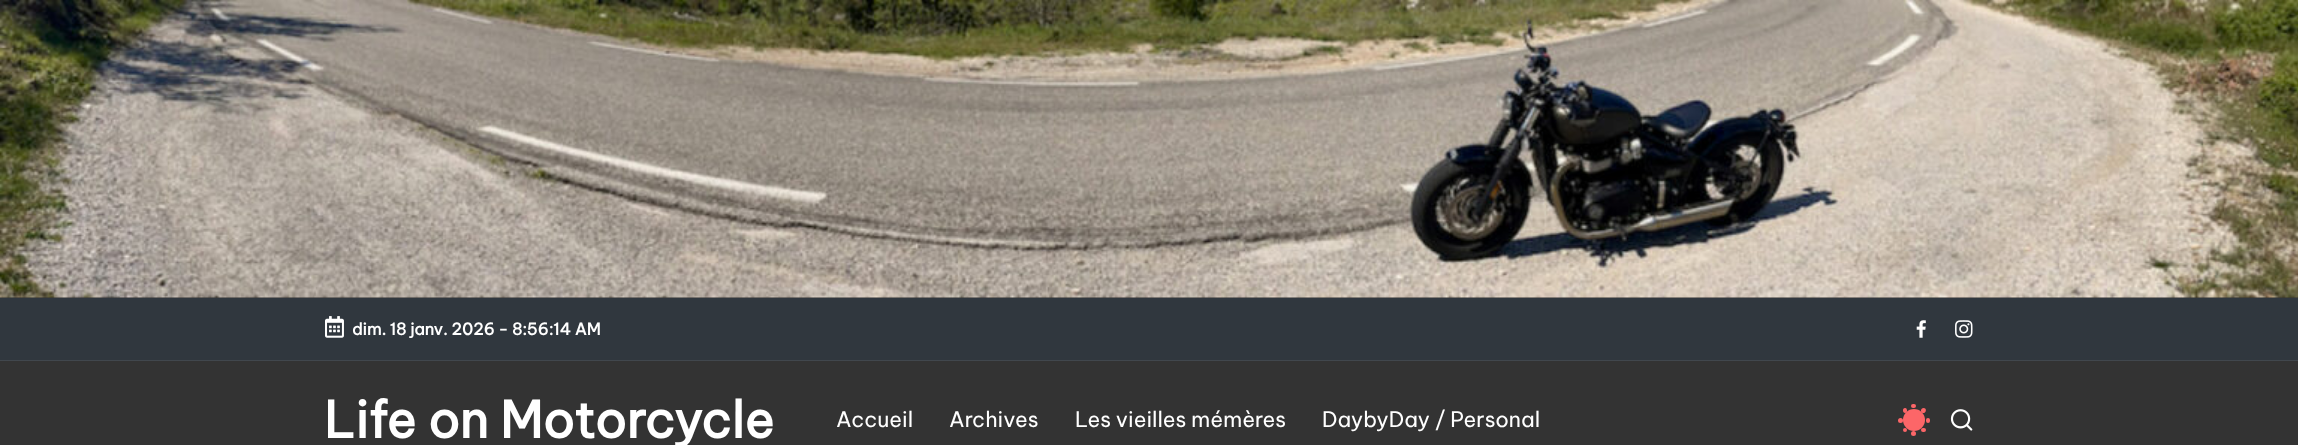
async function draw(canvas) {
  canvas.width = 2298
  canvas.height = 445
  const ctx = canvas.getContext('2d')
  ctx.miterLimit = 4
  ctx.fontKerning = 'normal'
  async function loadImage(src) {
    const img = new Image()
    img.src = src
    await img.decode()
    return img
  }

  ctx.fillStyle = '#333'
  ctx.fillRect(0, 0, 2298, 445)
  ctx.drawImage(await loadImage('image0.png'), 0, 0, 2298, 298)
  ctx.fillStyle = '#30373e'
  ctx.fillRect(0, 298, 2298, 62)
  ctx.fillStyle = '#41474d'
  ctx.fillRect(0, 360, 2298, 1)
  ctx.drawImage(await loadImage('image1.png'), 325, 316, 19, 22)
  ctx.font = 'bold 16.25px Be Vietnam Pro'
  ctx.fillStyle = '#fff'
  ctx.fillText('dim. 18 janv. 2026 - 8:56:14 AM', 352, 335)
  ctx.drawImage(await loadImage('image2.png'), 1916, 320, 10, 18)
  ctx.drawImage(await loadImage('image3.png'), 1955, 320, 18, 18)
  ctx.font = 'bold 50px Be Vietnam Pro'
  ctx.fillText('Life on Motorcycle', 324, 438)
  ctx.font = '21.25px Be Vietnam Pro'
  ctx.fillText('Accueil', 836, 427)
  ctx.fillText('Archives', 949, 427)
  ctx.fillText('Les vieilles mémères', 1075, 427)
  ctx.fillText('DaybyDay / Personal', 1322, 427)
  ctx.fillStyle = '#fc6668'
  ctx.beginPath()
  ctx.moveTo(1923.5, 408)
  ctx.bezierCurveTo(1922, 408, 1920.5, 409.5, 1921, 411.5)
  ctx.lineTo(1922.5, 413)
  ctx.bezierCurveTo(1926, 414, 1927.5, 408, 1923.5, 408)
  ctx.closePath()
  ctx.fill()
  ctx.beginPath()
  ctx.arc(1905, 430, 2, 0, 2 * Math.PI)
  ctx.fill()
  ctx.beginPath()
  ctx.roundRect(1921, 428, 5, 4, 2)
  ctx.fill()
  ctx.beginPath()
  ctx.moveTo(1905, 408)
  ctx.bezierCurveTo(1902, 408, 1902.5, 413.5, 1905.5, 413)
  ctx.lineTo(1907, 411.5)
  ctx.bezierCurveTo(1907, 410, 1907, 408, 1905, 408)
  ctx.closePath()
  ctx.fill()
  ctx.beginPath()
  ctx.arc(1913.5, 433.5, 2.5, 0, 2 * Math.PI)
  ctx.fill()
  ctx.beginPath()
  ctx.roundRect(1911, 404, 5, 4, 2)
  ctx.fill()
  ctx.beginPath()
  ctx.roundRect(1926, 418, 4, 5, 2)
  ctx.fill()
  ctx.beginPath()
  ctx.arc(1900.5, 420.5, 2.5, 0, 2 * Math.PI)
  ctx.fill()
  ctx.beginPath()
  ctx.arc(1914, 420, 11, 0, 2 * Math.PI)
  ctx.fill()
  ctx.drawImage(await loadImage('image4.png'), 1950, 409, 23, 22)
}

draw(document.querySelector('canvas'))
